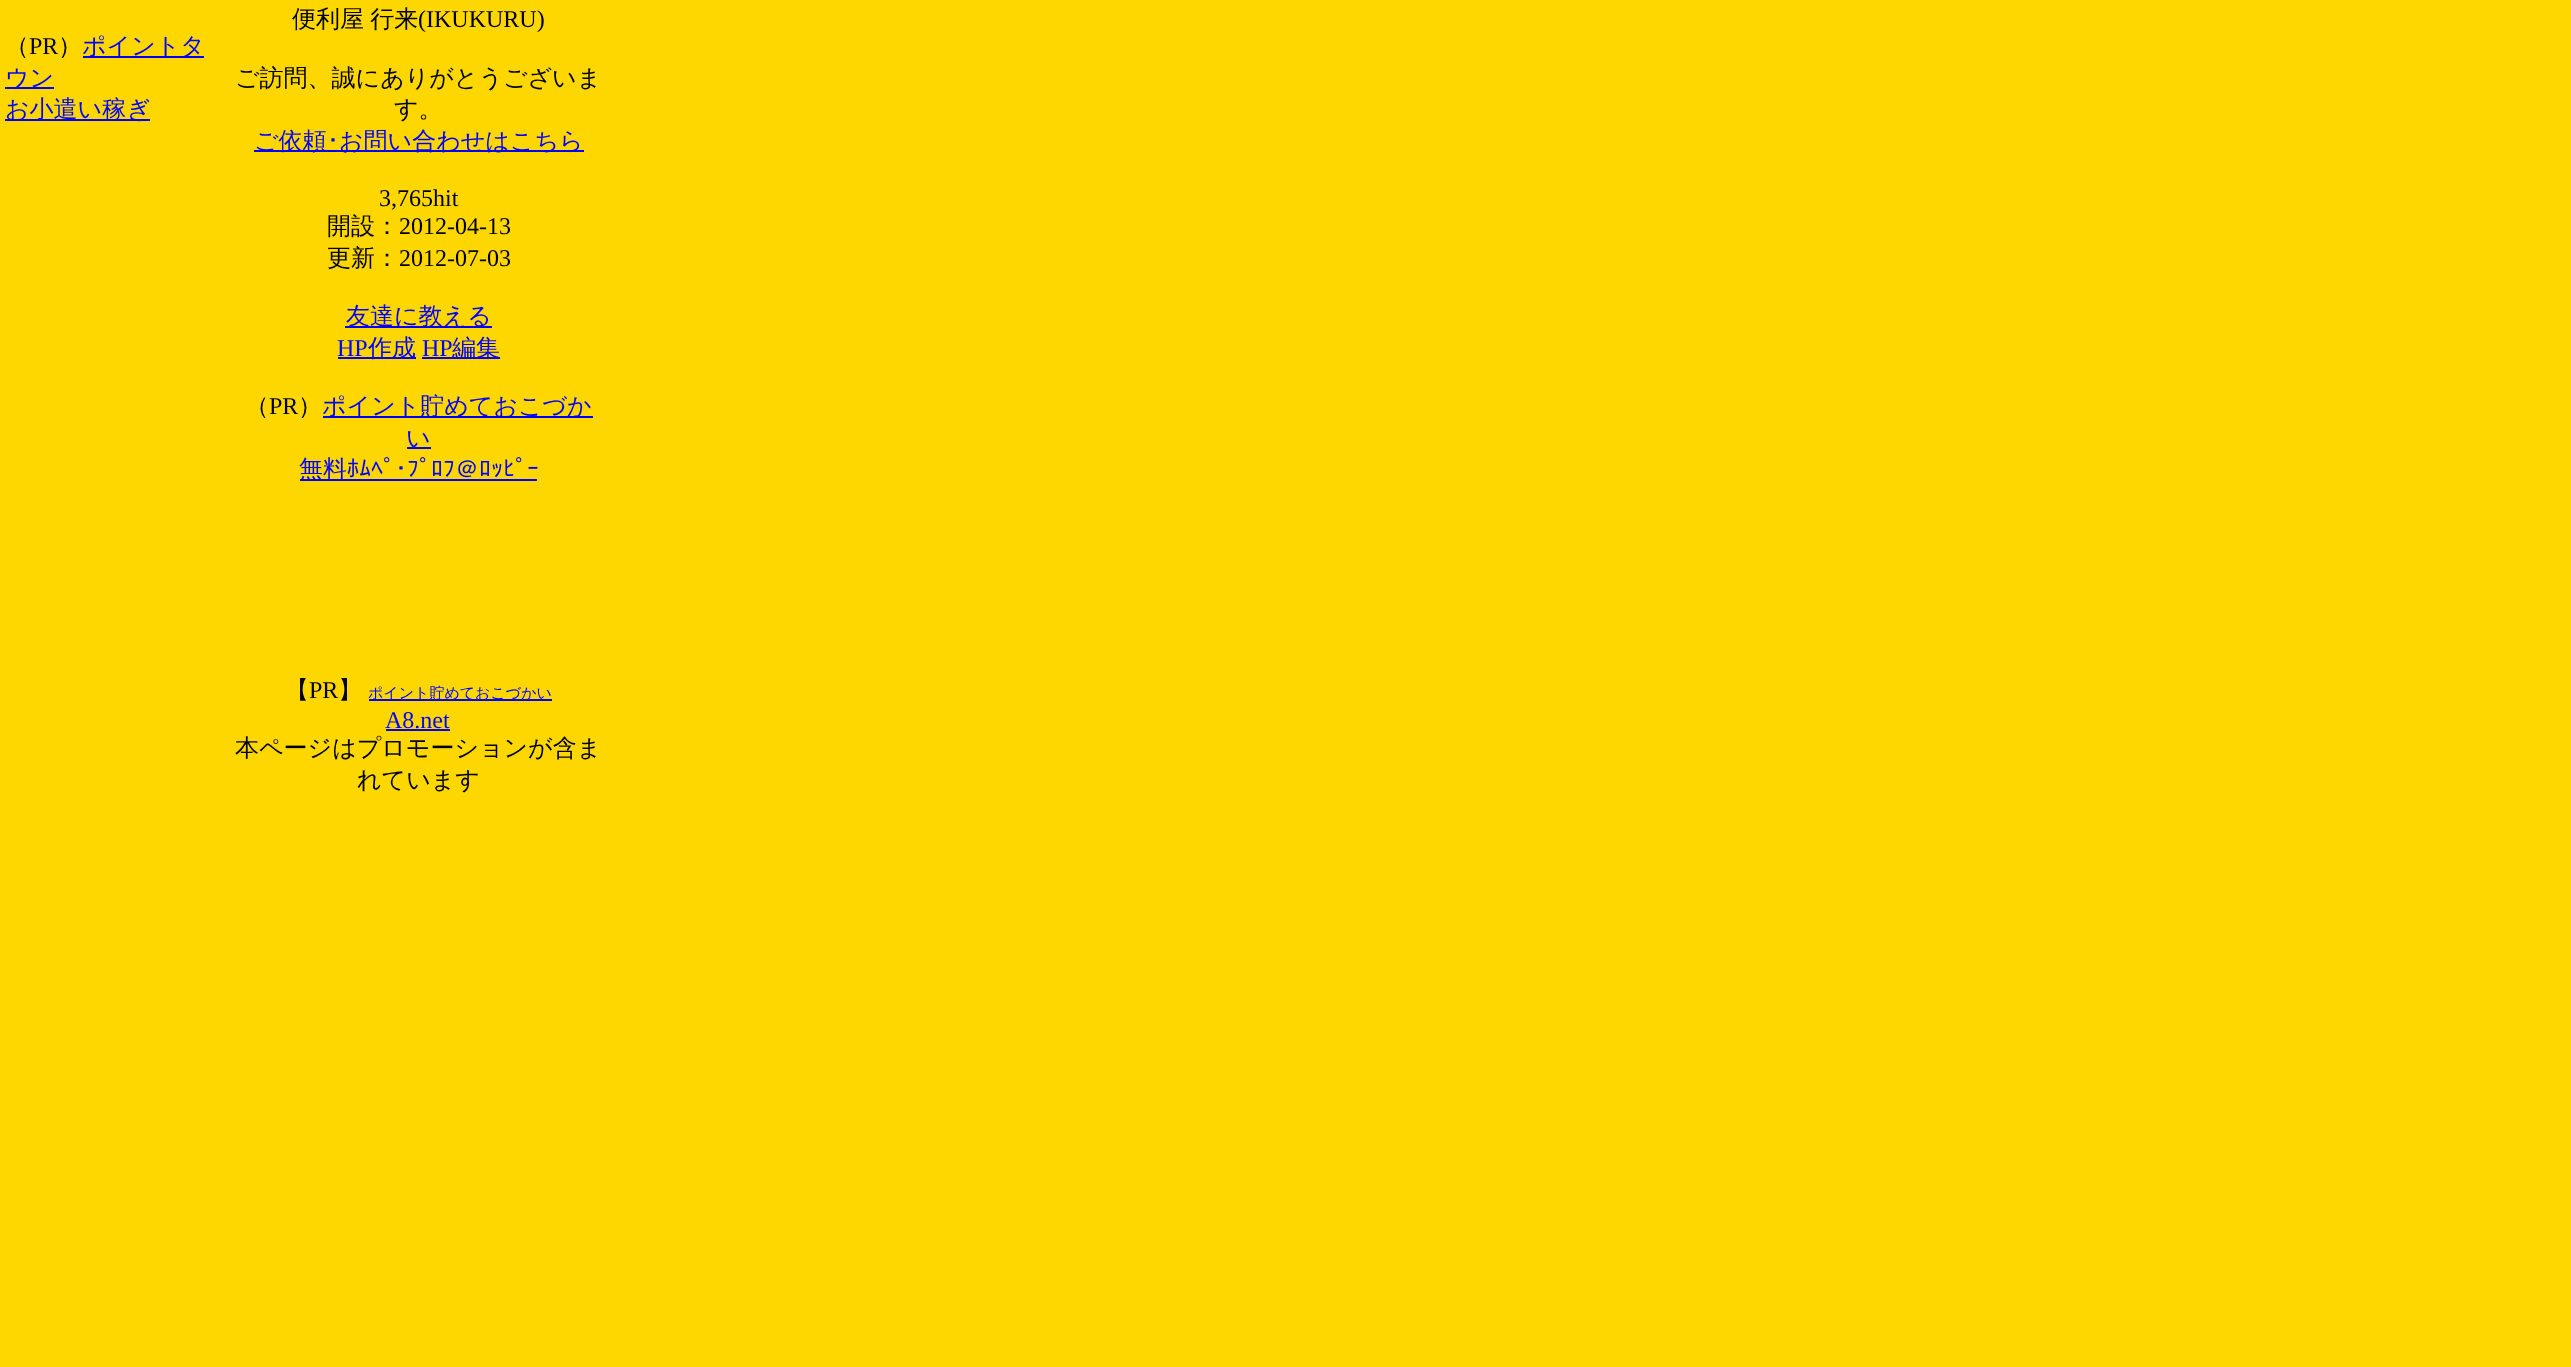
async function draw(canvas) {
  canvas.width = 2571
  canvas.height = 1367
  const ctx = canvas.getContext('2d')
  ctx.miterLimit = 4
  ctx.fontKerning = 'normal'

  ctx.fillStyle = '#ffd700'
  ctx.fillRect(0, 0, 2571, 1367)
  ctx.font = '500 24px WenQuanYi Zen Hei'
  ctx.fillStyle = '#000'
  ctx.fillText('（', 5, 54)
  ctx.font = '24px Liberation Serif'
  ctx.fillText('PR', 29, 54)
  ctx.font = '500 24px WenQuanYi Zen Hei'
  ctx.fillText('）', 58, 54)
  ctx.fillStyle = '#00f'
  ctx.fillRect(83, 56, 121, 2)
  ctx.fillText('ポイントタ', 82, 54)
  ctx.fillRect(5, 87, 49, 2)
  ctx.fillText('ウン', 5, 86)
  ctx.fillRect(5, 119, 145, 2)
  ctx.fillText('お小遣い稼ぎ', 5, 117)
  ctx.wordSpacing = '-1px'
  ctx.fillStyle = '#000'
  ctx.fillText('便利屋 行来', 292, 27)
  ctx.wordSpacing = '0px'
  ctx.font = '24px Liberation Serif'
  ctx.fillText('(IKUKURU)', 418, 27)
  ctx.font = '500 24px WenQuanYi Zen Hei'
  ctx.fillText('ご訪問、誠にありがとうございま', 235, 86)
  ctx.fillText('す。', 394, 117)
  ctx.fillStyle = '#00f'
  ctx.fillRect(254, 150, 330, 2)
  ctx.fillText('ご依頼', 254, 149)
  ctx.font = '24px IPAPGothic'
  ctx.fillText('･', 327, 149)
  ctx.font = '500 24px WenQuanYi Zen Hei'
  ctx.fillText('お問い合わせはこちら', 339, 149)
  ctx.font = '24px Liberation Serif'
  ctx.fillStyle = '#000'
  ctx.fillText('3,765hit', 379, 206)
  ctx.font = '500 24px WenQuanYi Zen Hei'
  ctx.fillText('開設：', 327, 234)
  ctx.font = '24px Liberation Serif'
  ctx.fillText('2012-04-13', 399, 234)
  ctx.font = '500 24px WenQuanYi Zen Hei'
  ctx.fillText('更新：', 327, 266)
  ctx.font = '24px Liberation Serif'
  ctx.fillText('2012-07-03', 399, 266)
  ctx.fillStyle = '#00f'
  ctx.fillRect(345, 326, 147, 2)
  ctx.font = '500 24px WenQuanYi Zen Hei'
  ctx.fillText('友達に教える', 346, 324)
  ctx.font = '24px Liberation Serif'
  ctx.fillText('HP', 337, 356)
  ctx.fillRect(338, 357, 78, 2)
  ctx.font = '500 24px WenQuanYi Zen Hei'
  ctx.fillText('作成', 368, 356)
  ctx.font = '24px Liberation Serif'
  ctx.fillText('HP', 422, 356)
  ctx.fillRect(422, 357, 78, 2)
  ctx.font = '500 24px WenQuanYi Zen Hei'
  ctx.fillText('編集', 452, 356)
  ctx.fillStyle = '#000'
  ctx.fillText('（', 245, 414)
  ctx.font = '24px Liberation Serif'
  ctx.fillText('PR', 269, 414)
  ctx.font = '500 24px WenQuanYi Zen Hei'
  ctx.fillText('）', 298, 414)
  ctx.fillStyle = '#00f'
  ctx.fillRect(323, 416, 270, 2)
  ctx.fillText('ポイント貯めておこづか', 322, 414)
  ctx.fillRect(407, 447, 24, 2)
  ctx.fillText('い', 406, 446)
  ctx.fillRect(300, 479, 237, 2)
  ctx.fillText('無料', 299, 477)
  ctx.font = '24px IPAPGothic'
  ctx.fillText('ﾎﾑﾍﾟ･ﾌﾟﾛﾌ', 347, 477)
  ctx.font = '500 24px WenQuanYi Zen Hei'
  ctx.fillText('＠', 455, 477)
  ctx.font = '24px IPAPGothic'
  ctx.fillText('ﾛｯﾋﾟｰ', 479, 477)
  ctx.font = '500 24px WenQuanYi Zen Hei'
  ctx.fillStyle = '#000'
  ctx.fillText('【', 285, 698)
  ctx.font = '24px Liberation Serif'
  ctx.fillText('PR', 309, 698)
  ctx.font = '500 24px WenQuanYi Zen Hei'
  ctx.fillText('】', 338, 698)
  ctx.fillStyle = '#00f'
  ctx.fillRect(369, 699, 183, 2)
  ctx.font = '500 15px WenQuanYi Zen Hei'
  ctx.fillText('ポイント貯めておこづかい', 368, 698)
  ctx.font = '24px Liberation Serif'
  ctx.fillText('A8.net', 385, 728)
  ctx.fillRect(386, 729, 64, 2)
  ctx.font = '500 24px WenQuanYi Zen Hei'
  ctx.fillStyle = '#000'
  ctx.fillText('本ページはプロモーションが含ま', 235, 756)
  ctx.fillText('れています', 357, 788)
}

draw(document.querySelector('canvas'))
